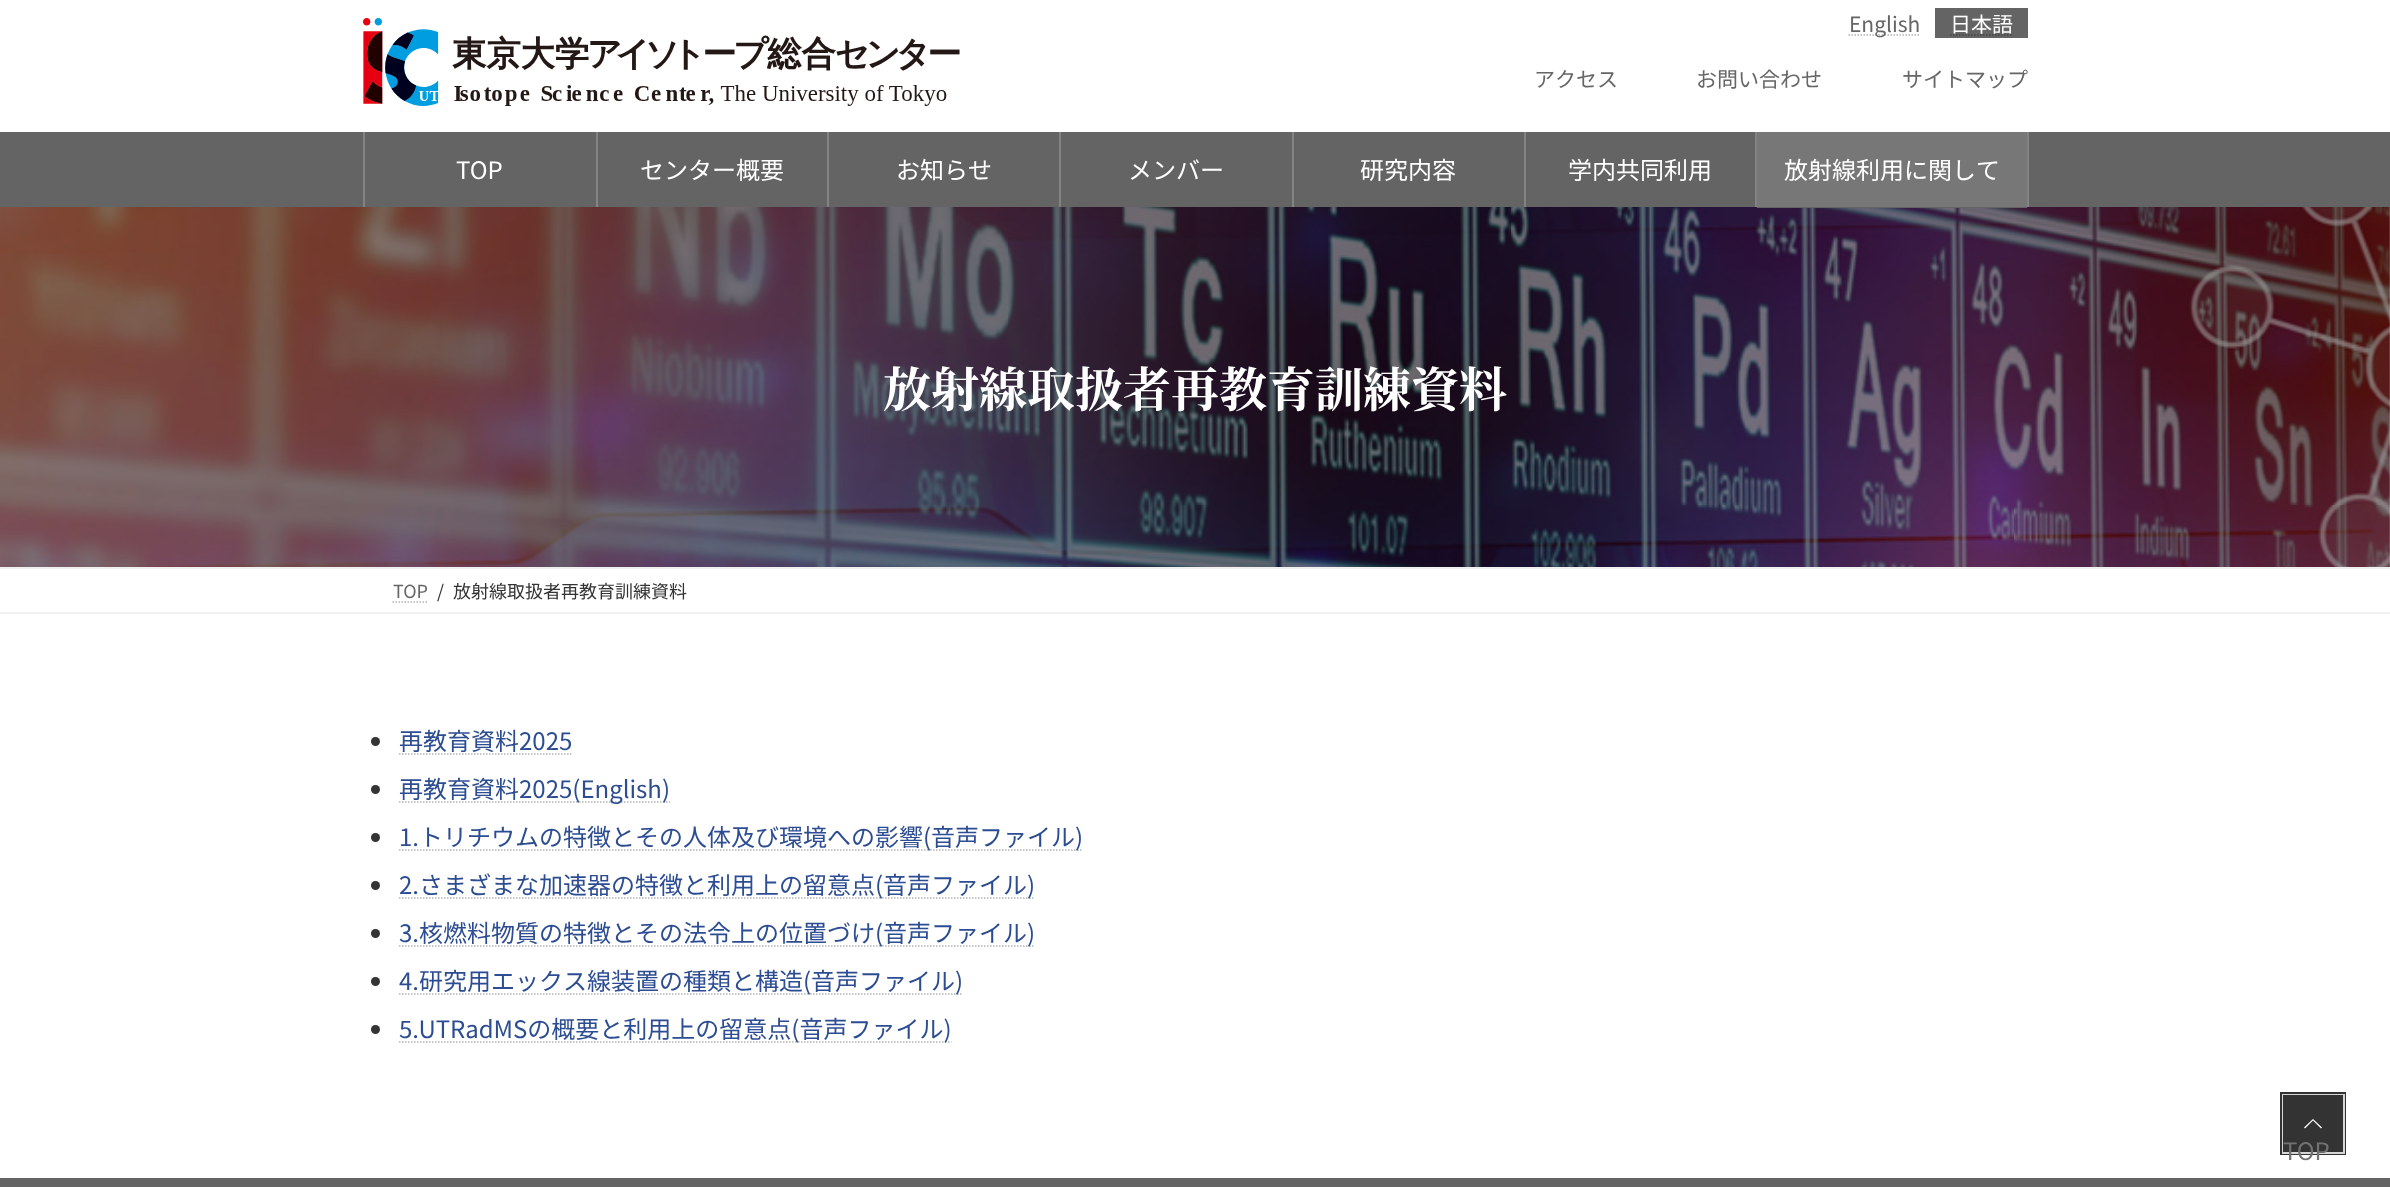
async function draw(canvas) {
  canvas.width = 2390
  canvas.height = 1187
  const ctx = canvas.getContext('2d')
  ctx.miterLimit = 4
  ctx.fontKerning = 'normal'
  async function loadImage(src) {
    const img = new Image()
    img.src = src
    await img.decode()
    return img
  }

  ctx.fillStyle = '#fff'
  ctx.fillRect(0, 0, 2390, 1187)
  ctx.drawImage(await loadImage('image0.png'), 363, 18, 597, 88)
  ctx.beginPath()
  ctx.moveTo(1848.5, 35)
  ctx.lineTo(1920, 35)
  ctx.strokeStyle = '#b3b3b3'
  ctx.lineWidth = 1.5
  ctx.setLineDash([1.5, 1.5])
  ctx.stroke()
  ctx.font = '21px Noto Sans JP'
  ctx.fillStyle = '#666'
  ctx.fillText('English', 1849, 32)
  ctx.fillStyle = '#646464'
  ctx.fillRect(1935, 8, 93, 30)
  ctx.fillStyle = '#fff'
  ctx.fillText('日本語', 1950, 32)
  ctx.beginPath()
  ctx.moveTo(1950, 35)
  ctx.lineTo(2013, 35)
  ctx.strokeStyle = '#464646'
  ctx.stroke()
  ctx.fillStyle = '#666'
  ctx.fillText('アクセス', 1534, 87)
  ctx.fillText('お問い合わせ', 1696, 87)
  ctx.fillText('サイトマップ', 1902, 87)
  ctx.fillStyle = '#646464'
  ctx.fillRect(0, 132, 2390, 75)
  ctx.fillStyle = '#838383'
  ctx.fillRect(596, 132, 2, 75)
  ctx.fillRect(363, 132, 2, 75)
  ctx.font = '24px Noto Sans JP'
  ctx.fillStyle = '#fff'
  ctx.fillText('TOP', 456, 179)
  ctx.fillStyle = '#838383'
  ctx.fillRect(827, 132, 2, 75)
  ctx.fillStyle = '#fff'
  ctx.fillText('センター概要', 640, 179)
  ctx.fillStyle = '#838383'
  ctx.fillRect(1059, 132, 2, 75)
  ctx.fillStyle = '#fff'
  ctx.fillText('お知らせ', 896, 179)
  ctx.fillStyle = '#838383'
  ctx.fillRect(1292, 132, 2, 75)
  ctx.fillStyle = '#fff'
  ctx.fillText('メンバー', 1128, 179)
  ctx.fillStyle = '#838383'
  ctx.fillRect(1524, 132, 2, 75)
  ctx.fillStyle = '#fff'
  ctx.fillText('研究内容', 1360, 179)
  ctx.fillStyle = '#838383'
  ctx.fillRect(1755, 132, 2, 75)
  ctx.fillStyle = '#fff'
  ctx.fillText('学内共同利用', 1568, 179)
  ctx.fillStyle = '#838383'
  ctx.fillRect(2027, 132, 2, 75)
  ctx.fillStyle = '#777'
  ctx.fillRect(1757, 132, 270, 75)
  ctx.fillStyle = '#fff'
  ctx.fillText('放射線利用に関して', 1784, 179)
  ctx.drawImage(await loadImage('image1.png'), 0, 207, 2390, 360)
  ctx.fillStyle = '#646464'
  ctx.fillRect(1757, 207, 270, 1)
  ctx.font = 'bold 48px Noto Serif JP'
  ctx.fillStyle = '#fff'
  ctx.fillText('放射線取扱者再教育訓練資料', 883, 407)
  ctx.fillStyle = '#f0f0f0'
  ctx.fillRect(0, 567, 2390, 2)
  ctx.fillRect(0, 612, 2390, 2)
  ctx.font = '18px Noto Sans JP'
  ctx.fillStyle = '#666'
  ctx.fillText('TOP', 393, 598)
  ctx.beginPath()
  ctx.moveTo(392.5, 602)
  ctx.lineTo(427.5, 602)
  ctx.strokeStyle = '#b3b3b3'
  ctx.stroke()
  ctx.fillStyle = '#333'
  ctx.fillText('/', 437, 598)
  ctx.fillText('放射線取扱者再教育訓練資料', 453, 598)
  ctx.beginPath()
  ctx.arc(375.5, 741.5, 4.5, 0, 2 * Math.PI)
  ctx.fill()
  ctx.font = '24px Noto Sans JP'
  ctx.fillStyle = '#2d4d92'
  ctx.fillText('再教育資料2025', 399, 750)
  ctx.beginPath()
  ctx.moveTo(399, 754)
  ctx.lineTo(572.5, 754)
  ctx.stroke()
  ctx.fillStyle = '#333'
  ctx.beginPath()
  ctx.arc(375.5, 789.5, 4.5, 0, 2 * Math.PI)
  ctx.fill()
  ctx.beginPath()
  ctx.moveTo(399, 802)
  ctx.lineTo(670, 802)
  ctx.stroke()
  ctx.fillStyle = '#2d4d92'
  ctx.fillText('再教育資料2025(English)', 399, 798)
  ctx.fillStyle = '#333'
  ctx.beginPath()
  ctx.arc(375.5, 837.5, 4.5, 0, 2 * Math.PI)
  ctx.fill()
  ctx.beginPath()
  ctx.moveTo(399, 850)
  ctx.lineTo(1082.5, 850)
  ctx.stroke()
  ctx.fillStyle = '#2d4d92'
  ctx.fillText('1.トリチウムの特徴とその人体及び環境への影響(音声ファイル)', 399, 846)
  ctx.fillStyle = '#333'
  ctx.beginPath()
  ctx.arc(375.5, 885.5, 4.5, 0, 2 * Math.PI)
  ctx.fill()
  ctx.beginPath()
  ctx.moveTo(399, 898)
  ctx.lineTo(1035, 898)
  ctx.stroke()
  ctx.fillStyle = '#2d4d92'
  ctx.fillText('2.さまざまな加速器の特徴と利用上の留意点(音声ファイル)', 399, 894)
  ctx.fillStyle = '#333'
  ctx.beginPath()
  ctx.arc(375.5, 933.5, 4.5, 0, 2 * Math.PI)
  ctx.fill()
  ctx.beginPath()
  ctx.moveTo(399, 946)
  ctx.lineTo(1034.5, 946)
  ctx.stroke()
  ctx.fillStyle = '#2d4d92'
  ctx.fillText('3.核燃料物質の特徴とその法令上の位置づけ(音声ファイル)', 399, 942)
  ctx.fillStyle = '#333'
  ctx.beginPath()
  ctx.arc(375.5, 981.5, 4.5, 0, 2 * Math.PI)
  ctx.fill()
  ctx.beginPath()
  ctx.moveTo(399, 994)
  ctx.lineTo(962.5, 994)
  ctx.stroke()
  ctx.fillStyle = '#2d4d92'
  ctx.fillText('4.研究用エックス線装置の種類と構造(音声ファイル)', 399, 990)
  ctx.fillStyle = '#333'
  ctx.beginPath()
  ctx.arc(375.5, 1029.5, 4.5, 0, 2 * Math.PI)
  ctx.fill()
  ctx.beginPath()
  ctx.moveTo(399, 1042)
  ctx.lineTo(951.5, 1042)
  ctx.stroke()
  ctx.fillStyle = '#2d4d92'
  ctx.fillText('5.UTRadMSの概要と利用上の留意点(音声ファイル)', 399, 1038)
  ctx.strokeStyle = '#333'
  ctx.lineWidth = 3
  ctx.setLineDash([])
  ctx.strokeRect(2281.5, 1093.5, 63, 60)
  ctx.strokeStyle = '#ffffffcc'
  ctx.lineWidth = 2
  ctx.strokeRect(2283, 1095, 61, 58)
  ctx.fillStyle = '#333'
  ctx.fillRect(2283, 1095, 60, 57)
  ctx.fillStyle = '#fff'
  ctx.beginPath()
  ctx.moveTo(2322, 1127.5)
  ctx.lineTo(2321, 1128.5)
  ctx.lineTo(2313, 1120.5)
  ctx.lineTo(2305, 1128.5)
  ctx.lineTo(2304, 1127.5)
  ctx.lineTo(2313, 1119)
  ctx.closePath()
  ctx.fill()
  ctx.fillStyle = '#717171'
  ctx.fillText('TOP', 2283, 1160)
  ctx.fillStyle = '#646464'
  ctx.fillRect(0, 1178, 2390, 9)
}

draw(document.querySelector('canvas'))
